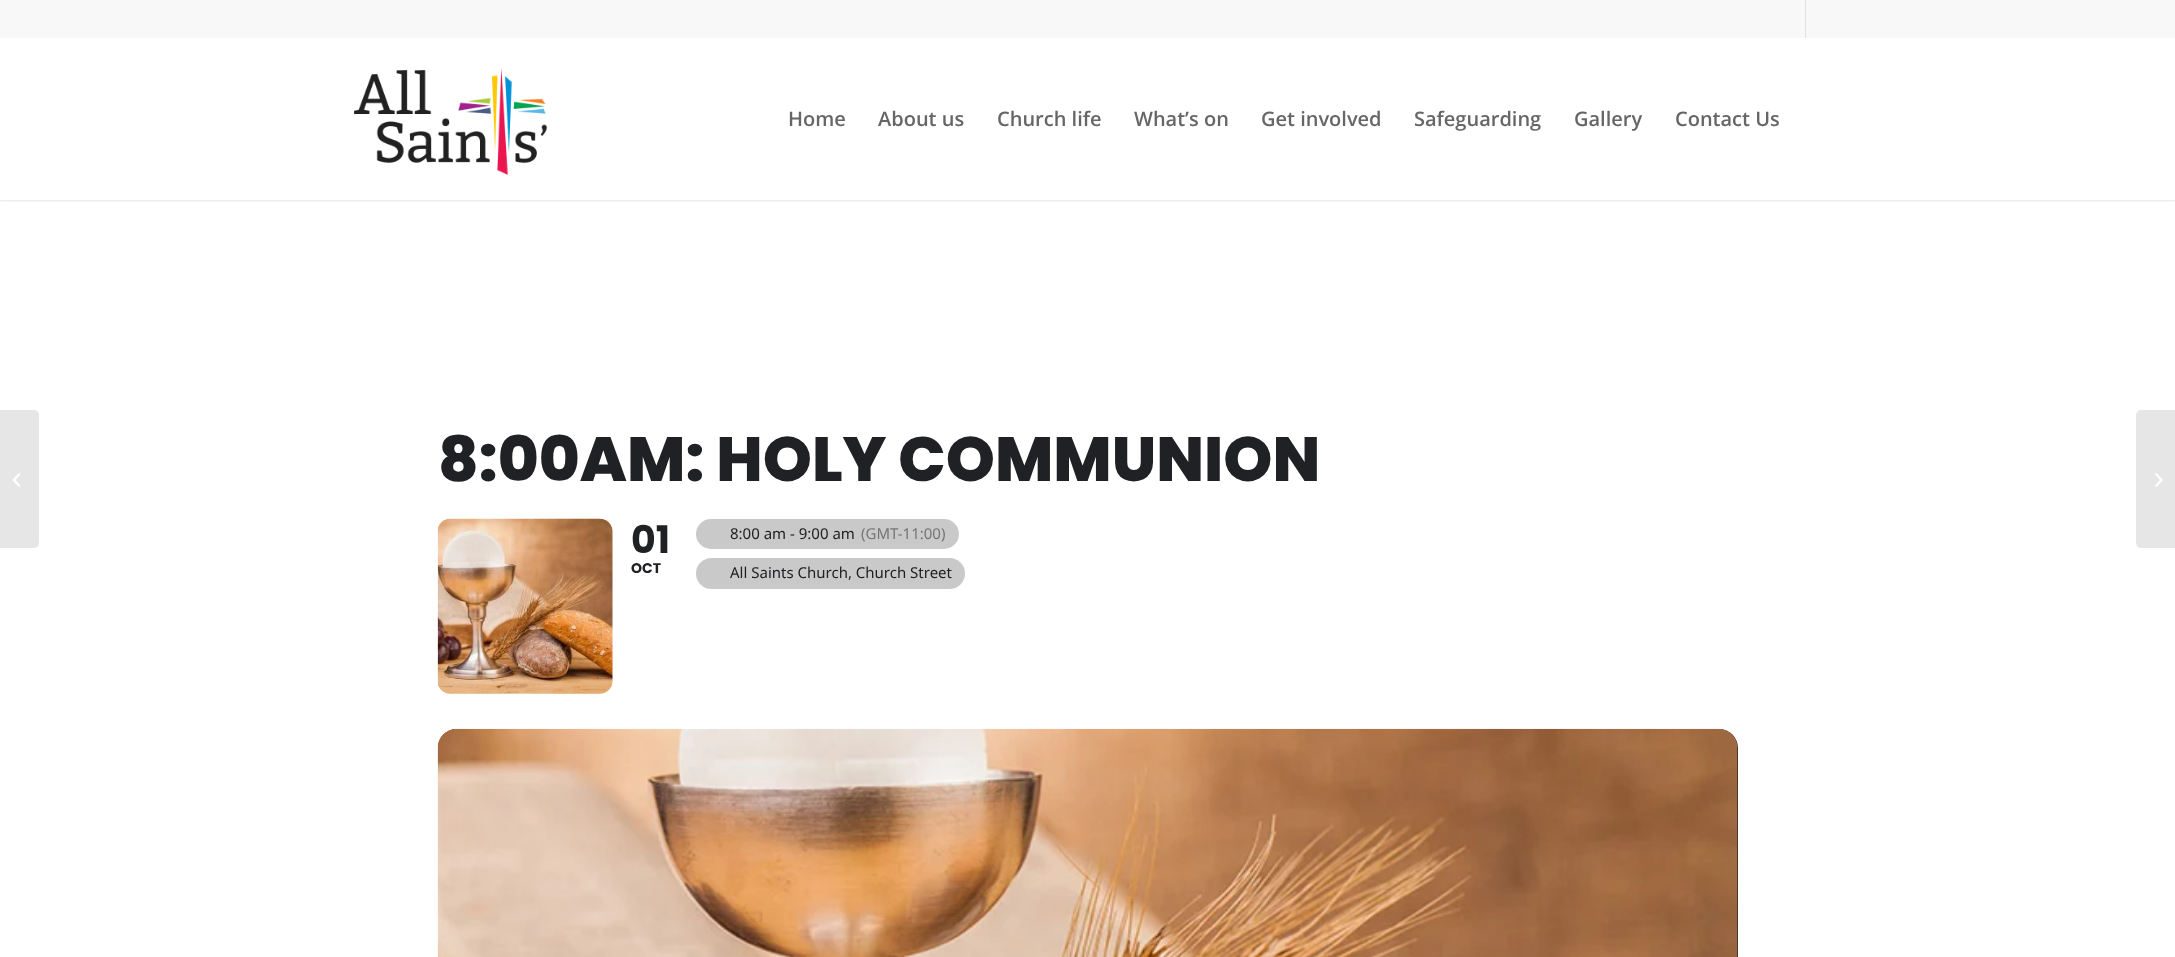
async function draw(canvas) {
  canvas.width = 2175
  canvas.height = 957
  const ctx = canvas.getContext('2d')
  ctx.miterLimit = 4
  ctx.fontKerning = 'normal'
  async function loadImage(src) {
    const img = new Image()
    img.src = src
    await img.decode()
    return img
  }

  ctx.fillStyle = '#fff'
  ctx.fillRect(0, 0, 2175, 957)
  ctx.save()
  ctx.beginPath()
  ctx.rect(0, 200, 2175, 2)
  ctx.clip()
  ctx.fillStyle = '#0000001a'
  ctx.filter = 'blur(1px)'
  ctx.beginPath()
  ctx.rect(-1, -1, 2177, 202)
  ctx.fill()
  ctx.filter = 'none'
  ctx.restore()
  ctx.fillStyle = '#f8f8f8'
  ctx.fillRect(0, 0, 2175, 38)
  ctx.fillStyle = '#e1e1e1'
  ctx.fillRect(1805, 0, 1, 38)
  ctx.drawImage(await loadImage('image0.png'), 354, 69, 194, 106)
  ctx.font = '600 20px Open Sans'
  ctx.fillStyle = '#666'
  ctx.fillText('Home', 788, 126)
  ctx.fillText('About us', 878, 126)
  ctx.fillText('Church life', 997, 126)
  ctx.fillText('What’s on', 1134, 126)
  ctx.fillText('Get involved', 1261, 126)
  ctx.fillText('Safeguarding', 1414, 126)
  ctx.fillText('Gallery', 1574, 126)
  ctx.fillText('Contact Us', 1675, 126)
  ctx.fillStyle = '#e6e6e6'
  ctx.beginPath()
  ctx.roundRect(0, 410, 39, 138, [0, 5, 5, 0])
  ctx.fill()
  ctx.drawImage(await loadImage('image1.png'), 13, 473, 7, 14)
  ctx.font = '800 62.5px Poppins'
  ctx.fillStyle = '#202124'
  ctx.fillText('8:00AM: HOLY COMMUNION', 438, 481)
  ctx.drawImage(await loadImage('image2.png'), 437, 518, 176, 176)
  ctx.font = 'bold 38px Poppins'
  ctx.fillText('01', 631, 553)
  ctx.font = 'bold 14px Poppins'
  ctx.fillText('OCT', 631, 573)
  ctx.fillStyle = '#c9c9c9'
  ctx.beginPath()
  ctx.roundRect(696, 519, 263, 30, 15)
  ctx.fill()
  ctx.font = '15px Noto Sans'
  ctx.fillStyle = '#202124'
  ctx.fillText('8:00 am - 9:00 am', 730, 539)
  ctx.fillStyle = '#757577'
  ctx.fillText('(GMT-11:00)', 861, 539)
  ctx.fillStyle = '#c9c9c9'
  ctx.beginPath()
  ctx.roundRect(696, 558, 269, 31, 15.5)
  ctx.fill()
  ctx.fillStyle = '#202124'
  ctx.fillText('All Saints Church, Church Street', 730, 578)
  ctx.fillStyle = '#333'
  ctx.beginPath()
  ctx.roundRect(438, 729, 1300, 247, 19)
  ctx.fill()
  ctx.drawImage(await loadImage('image3.png'), 437, 728, 1301, 229)
  ctx.fillStyle = '#e6e6e6'
  ctx.beginPath()
  ctx.roundRect(2136, 410, 39, 138, [5, 0, 0, 5])
  ctx.fill()
  ctx.drawImage(await loadImage('image4.png'), 2155, 473, 8, 14)
}

draw(document.querySelector('canvas'))
